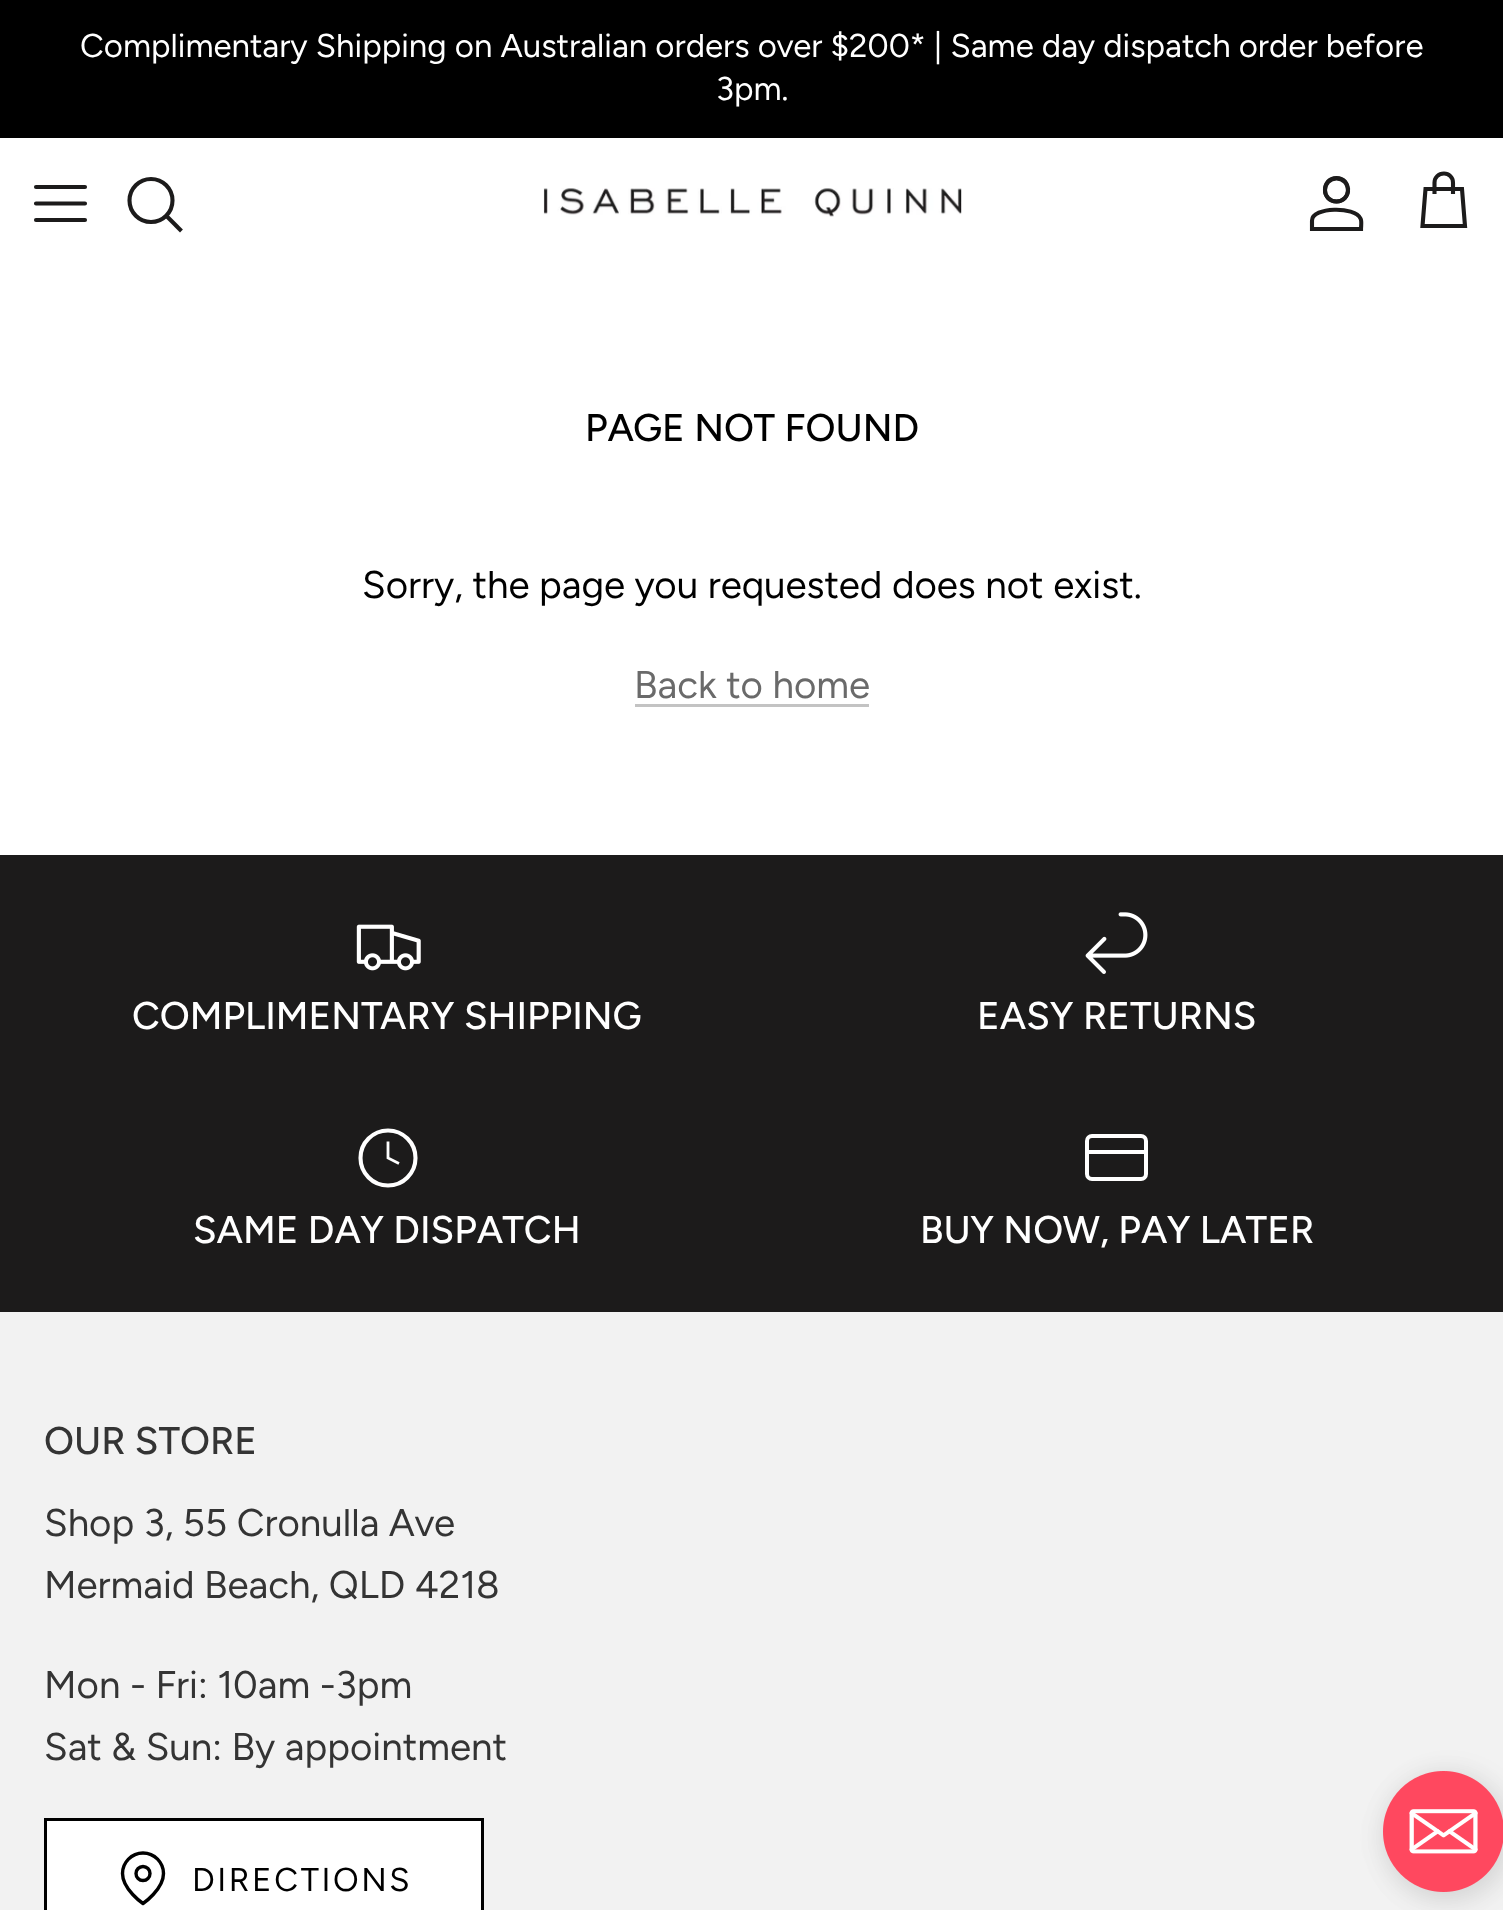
async function draw(canvas) {
  canvas.width = 1503
  canvas.height = 1910
  const ctx = canvas.getContext('2d')
  ctx.miterLimit = 4
  ctx.fontKerning = 'normal'
  async function loadImage(src) {
    const img = new Image()
    img.src = src
    await img.decode()
    return img
  }

  ctx.fillStyle = '#fff'
  ctx.fillRect(0, 0, 1503, 1910)
  ctx.fillStyle = '#000'
  ctx.fillRect(0, 0, 1503, 138)
  ctx.font = '33px Figtree'
  ctx.fillStyle = '#fff'
  ctx.fillText('Complimentary Shipping on Australian orders over $200* | Same day dispatch order before', 80, 57)
  ctx.fillText('3pm.', 716, 100)
  ctx.beginPath()
  ctx.moveTo(36, 203.5)
  ctx.lineTo(85, 203.5)
  ctx.moveTo(36, 187)
  ctx.lineTo(85, 187)
  ctx.moveTo(36, 220)
  ctx.lineTo(85, 220)
  ctx.strokeStyle = '#1c1b1b'
  ctx.lineWidth = 4.1
  ctx.lineCap = 'round'
  ctx.lineJoin = 'round'
  ctx.stroke()
  ctx.beginPath()
  ctx.arc(151, 200.5, 21.5, 0, 2 * Math.PI)
  ctx.stroke()
  ctx.beginPath()
  ctx.moveTo(167.5, 217)
  ctx.lineTo(180, 229.5)
  ctx.lineCap = 'square'
  ctx.lineJoin = 'miter'
  ctx.stroke()
  ctx.drawImage(await loadImage('image0.png'), 543, 188, 419, 29)
  ctx.fillStyle = '#1c1b1b'
  ctx.beginPath()
  ctx.moveTo(1336.5, 176)
  ctx.bezierCurveTo(1354.5, 176, 1354.5, 203.5, 1336.5, 203.5)
  ctx.bezierCurveTo(1318.5, 203.5, 1318.5, 176, 1336.5, 176)
  ctx.closePath()
  ctx.moveTo(1336.5, 180)
  ctx.bezierCurveTo(1323.5, 180, 1323.5, 199.5, 1336.5, 199.5)
  ctx.bezierCurveTo(1349.5, 199.5, 1349.5, 180, 1336.5, 180)
  ctx.closePath()
  ctx.fill('evenodd')
  ctx.beginPath()
  ctx.arc(1336.5, 190, 11.5, 0, 2 * Math.PI)
  ctx.stroke()
  ctx.beginPath()
  ctx.moveTo(1312, 220.5)
  ctx.bezierCurveTo(1312, 207, 1355, 206, 1360.5, 218.5)
  ctx.bezierCurveTo(1362, 221, 1361, 226, 1361, 229)
  ctx.lineTo(1312, 229)
  ctx.closePath()
  ctx.lineCap = 'butt'
  ctx.stroke()
  ctx.beginPath()
  ctx.moveTo(1453, 194)
  ctx.lineTo(1453, 182.5)
  ctx.bezierCurveTo(1453, 177.5, 1449, 173.5, 1444, 173.5)
  ctx.bezierCurveTo(1438.5, 173.5, 1434.5, 177.5, 1434.5, 182.5)
  ctx.lineTo(1434.5, 194)
  ctx.moveTo(1425.5, 189)
  ctx.lineTo(1462, 189)
  ctx.lineTo(1465, 226)
  ctx.lineTo(1422.5, 226)
  ctx.closePath()
  ctx.stroke()
  ctx.font = '500 38.5px Figtree'
  ctx.fillStyle = '#000'
  ctx.fillText('PAGE NOT FOUND', 585, 441)
  ctx.font = '38.5px Figtree'
  ctx.fillText('Sorry, the page you requested does not exist.', 362, 598)
  ctx.fillStyle = '#6a6a6a'
  ctx.fillText('Back to home', 634, 698)
  ctx.fillStyle = '#c3c3c3'
  ctx.fillRect(635, 704, 234, 3)
  ctx.fillStyle = '#1c1b1b'
  ctx.fillRect(0, 855, 1503, 457)
  ctx.drawImage(await loadImage('image1.png'), 356, 924, 65, 47)
  ctx.font = '500 38.5px Figtree'
  ctx.fillStyle = '#fff'
  ctx.fillText('COMPLIMENTARY SHIPPING', 132, 1029)
  ctx.drawImage(await loadImage('image2.png'), 1085, 912, 63, 62)
  ctx.fillText('EASY RETURNS', 977, 1029)
  ctx.beginPath()
  ctx.arc(388, 1158, 27.5, 0, 2 * Math.PI)
  ctx.strokeStyle = '#fff'
  ctx.stroke()
  ctx.beginPath()
  ctx.moveTo(388, 1141.5)
  ctx.lineTo(388, 1158)
  ctx.lineTo(399, 1163.5)
  ctx.lineWidth = 2.8
  ctx.stroke()
  ctx.fillText('SAME DAY DISPATCH', 193, 1243)
  ctx.beginPath()
  ctx.roundRect(1087, 1136, 59, 43, 5)
  ctx.lineWidth = 4
  ctx.stroke()
  ctx.fillRect(1088, 1150, 58, 4)
  ctx.fillText('BUY NOW, PAY LATER', 920, 1243)
  ctx.fillStyle = '#f2f2f2'
  ctx.fillRect(0, 1312, 1503, 598)
  ctx.fillStyle = '#343434'
  ctx.fillText('OUR STORE', 44, 1454)
  ctx.font = '38.5px Figtree'
  ctx.fillText('Shop 3, 55 Cronulla Ave', 44, 1536)
  ctx.fillText('Mermaid Beach, QLD 4218', 44, 1598)
  ctx.fillText('Mon - Fri: 10am -3pm', 44, 1698)
  ctx.fillText('Sat & Sun: By appointment', 44, 1760)
  ctx.fillStyle = '#fff'
  ctx.beginPath()
  ctx.rect(45.5, 1819.5, 437, 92)
  ctx.fill()
  ctx.strokeStyle = '#000'
  ctx.lineWidth = 3
  ctx.stroke()
  ctx.beginPath()
  ctx.moveTo(163.5, 1873.5)
  ctx.bezierCurveTo(163.5, 1889.5, 143, 1903.5, 143, 1903.5)
  ctx.bezierCurveTo(143, 1903.5, 122.5, 1889.5, 122.5, 1873.5)
  ctx.bezierCurveTo(122.5, 1862.5, 131.5, 1853, 143, 1853)
  ctx.bezierCurveTo(154.5, 1853, 163.5, 1862.5, 163.5, 1873.5)
  ctx.closePath()
  ctx.lineWidth = 3.4
  ctx.lineCap = 'round'
  ctx.lineJoin = 'round'
  ctx.stroke()
  ctx.beginPath()
  ctx.arc(143, 1873.5, 7, 0, 2 * Math.PI)
  ctx.stroke()
  ctx.letterSpacing = '2.6px'
  ctx.font = '33px Figtree'
  ctx.fillStyle = '#000'
  ctx.fillText('DIRECTIONS', 192, 1891)
  ctx.fillStyle = '#00000012'
  ctx.filter = 'blur(12.5px)'
  ctx.beginPath()
  ctx.roundRect(1383, 1771, 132, 132, 66)
  ctx.fill()
  ctx.filter = 'none'
  ctx.fillStyle = '#0000000d'
  ctx.filter = 'blur(14px)'
  ctx.beginPath()
  ctx.roundRect(1383, 1777, 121, 121, 60.5)
  ctx.fill()
  ctx.filter = 'none'
  ctx.drawImage(await loadImage('image3.png'), 1383, 1771, 120, 121)
}

draw(document.querySelector('canvas'))
